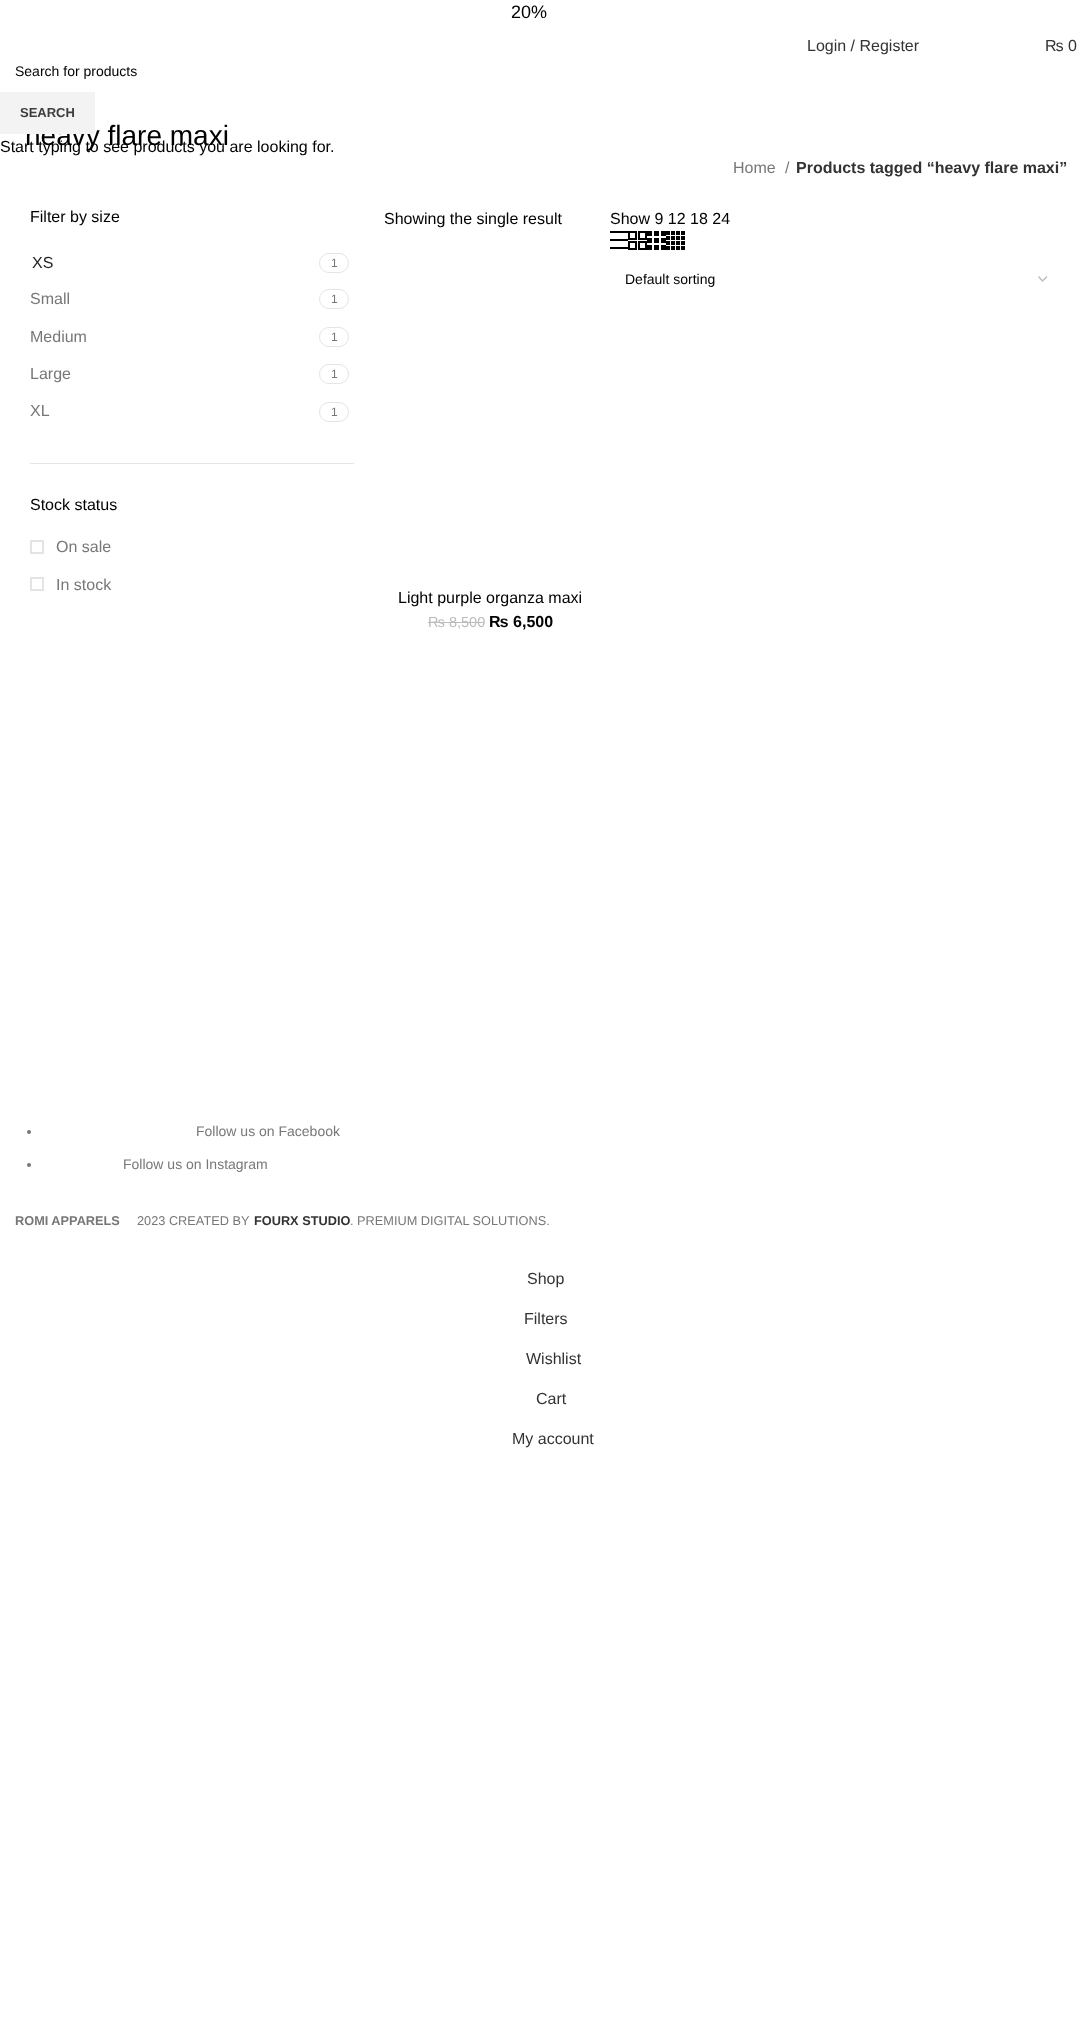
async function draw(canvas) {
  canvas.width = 1092
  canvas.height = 2034
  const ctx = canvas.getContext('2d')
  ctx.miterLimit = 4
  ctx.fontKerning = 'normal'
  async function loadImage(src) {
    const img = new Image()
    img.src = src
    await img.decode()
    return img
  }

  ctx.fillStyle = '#fff'
  ctx.fillRect(0, 0, 1092, 2034)
  ctx.font = '18px Liberation Sans'
  ctx.fillStyle = '#000'
  ctx.fillText('20%', 511, 18)
  ctx.font = '14px Liberation Sans'
  ctx.fillText('Search for products', 15, 76)
  ctx.fillStyle = '#fff'
  ctx.fillRect(52, 65, 59, 1)
  ctx.font = '16px Liberation Sans'
  ctx.fillStyle = '#333'
  ctx.fillText('Login / Register', 807, 51)
  ctx.fillText('₨ 0', 1045, 51)
  ctx.font = '28px Liberation Sans'
  ctx.fillStyle = '#000'
  ctx.fillText('heavy flare maxi', 25, 145)
  ctx.font = '16px Liberation Sans'
  ctx.fillStyle = '#777'
  ctx.fillText('Home', 733, 173)
  ctx.fillText('/', 785, 173)
  ctx.font = 'bold 16px Liberation Sans'
  ctx.fillStyle = '#333'
  ctx.fillText('Products tagged “heavy flare maxi”', 796, 173)
  ctx.fillStyle = '#e4e4e4'
  ctx.fillRect(30, 463, 324, 1)
  ctx.font = '16px Liberation Sans'
  ctx.fillStyle = '#000'
  ctx.fillText('Filter by size', 30, 222)
  ctx.fillStyle = '#242424'
  ctx.fillText('XS', 32, 268)
  ctx.beginPath()
  ctx.roundRect(319.5, 253.5, 29, 19, 9.5)
  ctx.strokeStyle = '#e4e4e4'
  ctx.stroke()
  ctx.font = '12px Liberation Sans'
  ctx.fillStyle = '#777'
  ctx.fillText('1', 331, 267)
  ctx.font = '16px Liberation Sans'
  ctx.fillText('Small', 30, 304)
  ctx.beginPath()
  ctx.roundRect(319.5, 289.5, 29, 19, 9.5)
  ctx.stroke()
  ctx.font = '12px Liberation Sans'
  ctx.fillText('1', 331, 303)
  ctx.font = '16px Liberation Sans'
  ctx.fillText('Medium', 30, 342)
  ctx.beginPath()
  ctx.roundRect(319.5, 327.5, 29, 19, 9.5)
  ctx.stroke()
  ctx.font = '12px Liberation Sans'
  ctx.fillText('1', 331, 341)
  ctx.font = '16px Liberation Sans'
  ctx.fillText('Large', 30, 379)
  ctx.beginPath()
  ctx.roundRect(319.5, 364.5, 29, 19, 9.5)
  ctx.stroke()
  ctx.font = '12px Liberation Sans'
  ctx.fillText('1', 331, 378)
  ctx.font = '16px Liberation Sans'
  ctx.fillText('XL', 30, 416)
  ctx.beginPath()
  ctx.roundRect(319.5, 402.5, 29, 19, 9.5)
  ctx.stroke()
  ctx.font = '12px Liberation Sans'
  ctx.fillText('1', 331, 416)
  ctx.font = '16px Liberation Sans'
  ctx.fillStyle = '#000'
  ctx.fillText('Stock status', 30, 510)
  ctx.lineWidth = 2
  ctx.strokeRect(31, 541, 12, 12)
  ctx.fillStyle = '#777'
  ctx.fillText('On sale', 56, 552)
  ctx.strokeRect(31, 578, 12, 12)
  ctx.fillText('In stock', 56, 590)
  ctx.fillStyle = '#000'
  ctx.fillText('Showing the single result', 384, 224)
  ctx.fillText('Show 9 12 18 24', 610, 224)
  ctx.fillRect(610, 231, 18, 2)
  ctx.fillRect(610, 239, 18, 2)
  ctx.fillRect(610, 247, 18, 2)
  ctx.drawImage(await loadImage('image0.png'), 628, 231, 19, 19)
  ctx.drawImage(await loadImage('image1.png'), 647, 231, 19, 19)
  ctx.drawImage(await loadImage('image2.png'), 666, 231, 19, 19)
  ctx.beginPath()
  ctx.moveTo(1038.5, 276.5)
  ctx.lineTo(1042.5, 281)
  ctx.lineTo(1047, 276.5)
  ctx.strokeStyle = '#bbb'
  ctx.lineWidth = 1.4
  ctx.stroke()
  ctx.font = '14px Liberation Sans'
  ctx.fillText('Default sorting', 625, 284)
  ctx.font = '16px Liberation Sans'
  ctx.fillText('Light purple organza maxi', 398, 603)
  ctx.font = '14.5px Liberation Sans'
  ctx.fillStyle = '#bbb'
  ctx.fillText('₨ 8,500', 428, 627)
  ctx.fillRect(428, 622, 56, 1)
  ctx.font = 'bold 16px Liberation Sans'
  ctx.fillStyle = '#000'
  ctx.fillText('₨ 6,500', 489, 627)
  ctx.fillStyle = '#777'
  ctx.beginPath()
  ctx.arc(29, 1132, 2, 0, 2 * Math.PI)
  ctx.fill()
  ctx.font = '14px Liberation Sans'
  ctx.fillText('Follow us on Facebook', 196, 1136)
  ctx.beginPath()
  ctx.arc(29, 1165, 2, 0, 2 * Math.PI)
  ctx.fill()
  ctx.fillText('Follow us on Instagram', 123, 1169)
  ctx.font = 'bold 12.75px Liberation Sans'
  ctx.fillText('ROMI APPARELS', 15, 1225)
  ctx.font = '12.75px Liberation Sans'
  ctx.fillText('2023 CREATED BY', 137, 1225)
  ctx.font = 'bold 12.75px Liberation Sans'
  ctx.fillStyle = '#333'
  ctx.fillText('FOURX STUDIO', 254, 1225)
  ctx.font = '12.75px Liberation Sans'
  ctx.fillStyle = '#777'
  ctx.fillText('. PREMIUM DIGITAL SOLUTIONS.', 350, 1225)
  ctx.fillStyle = '#f3f3f3'
  ctx.fillRect(0, 92, 95, 42)
  ctx.font = 'bold 13px Liberation Sans'
  ctx.fillStyle = '#3e3e3e'
  ctx.fillText('SEARCH', 20, 117)
  ctx.font = '16px Liberation Sans'
  ctx.fillStyle = '#000'
  ctx.fillText('Start typing to see products you are looking for.', 0, 152)
  ctx.fillStyle = '#333'
  ctx.fillText('Shop', 527, 1284)
  ctx.fillText('Filters', 524, 1324)
  ctx.fillText('Wishlist', 526, 1364)
  ctx.fillText('Cart', 536, 1404)
  ctx.fillText('My account', 512, 1444)
}

draw(document.querySelector('canvas'))
